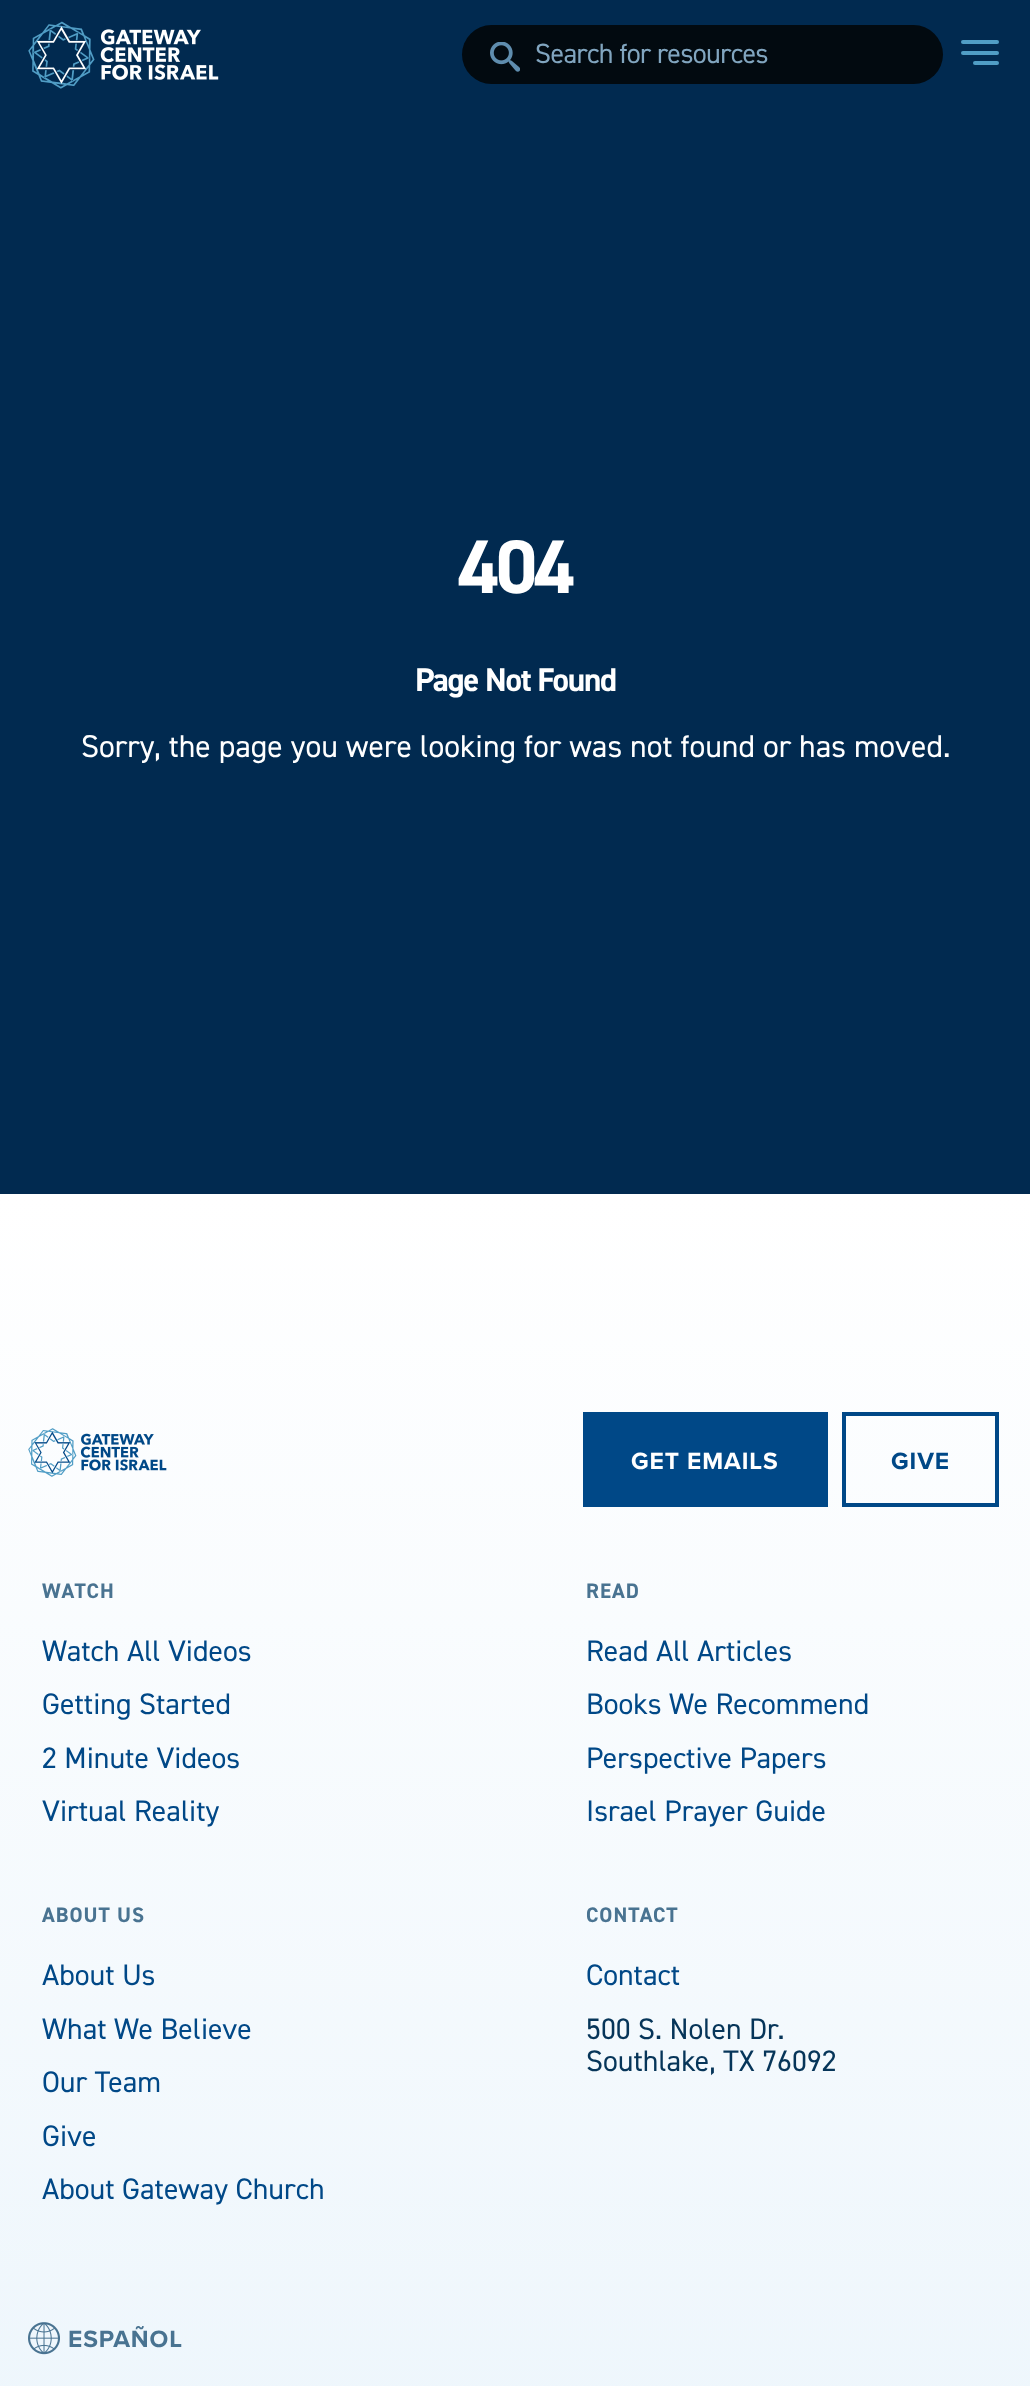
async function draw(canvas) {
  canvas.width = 1030
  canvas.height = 2386
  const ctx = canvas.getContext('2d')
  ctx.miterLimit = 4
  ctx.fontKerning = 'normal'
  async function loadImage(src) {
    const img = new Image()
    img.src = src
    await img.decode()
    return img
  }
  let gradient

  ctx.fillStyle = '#012a50'
  ctx.fillRect(0, 0, 1030, 2386)
  ctx.drawImage(await loadImage('image0.png'), 28, 21, 191, 68)
  ctx.fillStyle = '#020a10'
  ctx.beginPath()
  ctx.roundRect(462, 25, 481, 59, 29.5)
  ctx.fill()
  ctx.drawImage(await loadImage('image1.png'), 490, 42, 30, 30)
  ctx.letterSpacing = '-0.6px'
  ctx.font = '28px "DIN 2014"'
  ctx.fillStyle = '#81a5bf'
  ctx.fillText('Search for resources', 535, 63)
  ctx.fillStyle = '#509dc5'
  ctx.beginPath()
  ctx.roundRect(961, 40, 38, 4, 2)
  ctx.fill()
  ctx.beginPath()
  ctx.roundRect(961, 51, 38, 4, 2)
  ctx.fill()
  ctx.beginPath()
  ctx.roundRect(973, 61, 26, 4, 2)
  ctx.fill()
  ctx.letterSpacing = '-3px'
  ctx.font = 'bold 76px "DIN 2014"'
  ctx.fillStyle = '#fff'
  ctx.fillText('404', 458, 593)
  ctx.letterSpacing = '-1.25px'
  ctx.font = 'bold 33px "DIN 2014"'
  ctx.fillText('Page Not Found', 415, 691)
  ctx.letterSpacing = '0px'
  ctx.font = '31.7px "DIN 2014"'
  ctx.fillText('Sorry, the page you were looking for was not found or has moved.', 81, 757)
  gradient = ctx.createLinearGradient(515, 1194, 515, 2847)
  gradient.addColorStop(0, '#fff')
  gradient.addColorStop(1, '#e8f3fb')
  ctx.fillStyle = gradient
  ctx.fillRect(0, 1194, 1030, 1192)
  ctx.drawImage(await loadImage('image2.png'), 28, 1428, 139, 49)
  ctx.fillStyle = '#004887'
  ctx.fillRect(583, 1412, 245, 95)
  ctx.letterSpacing = '0.9px'
  ctx.font = 'bold 24.5px Proxima Nova'
  ctx.fillStyle = '#fff'
  ctx.fillText('GET EMAILS', 631, 1469)
  ctx.strokeStyle = '#004887'
  ctx.lineWidth = 4
  ctx.strokeRect(844, 1414, 153, 91)
  ctx.fillStyle = '#004887'
  ctx.fillText('GIVE', 891, 1469)
  ctx.letterSpacing = '1px'
  ctx.font = 'bold 21px "DIN 2014"'
  ctx.fillStyle = '#497391'
  ctx.fillText('WATCH', 42, 1598)
  ctx.letterSpacing = '0px'
  ctx.font = '29.75px "DIN 2014"'
  ctx.fillStyle = '#004887'
  ctx.fillText('Watch All Videos', 42, 1661)
  ctx.fillText('Getting Started', 42, 1714)
  ctx.fillText('2 Minute Videos', 42, 1768)
  ctx.fillText('Virtual Reality', 42, 1821)
  ctx.letterSpacing = '1px'
  ctx.font = 'bold 21px "DIN 2014"'
  ctx.fillStyle = '#497391'
  ctx.fillText('READ', 586, 1598)
  ctx.letterSpacing = '0px'
  ctx.font = '29.75px "DIN 2014"'
  ctx.fillStyle = '#004887'
  ctx.fillText('Read All Articles', 586, 1661)
  ctx.fillText('Books We Recommend', 586, 1714)
  ctx.fillText('Perspective Papers', 586, 1768)
  ctx.fillText('Israel Prayer Guide', 586, 1821)
  ctx.letterSpacing = '1px'
  ctx.font = 'bold 21px "DIN 2014"'
  ctx.fillStyle = '#497391'
  ctx.fillText('ABOUT US', 42, 1922)
  ctx.letterSpacing = '0px'
  ctx.font = '29.75px "DIN 2014"'
  ctx.fillStyle = '#004887'
  ctx.fillText('About Us', 42, 1985)
  ctx.fillText('What We Believe', 42, 2039)
  ctx.fillText('Our Team', 42, 2092)
  ctx.fillText('Give', 42, 2146)
  ctx.fillText('About Gateway Church', 42, 2199)
  ctx.letterSpacing = '1px'
  ctx.font = 'bold 21px "DIN 2014"'
  ctx.fillStyle = '#497391'
  ctx.fillText('CONTACT', 586, 1922)
  ctx.letterSpacing = '0px'
  ctx.font = '29.75px "DIN 2014"'
  ctx.fillStyle = '#004887'
  ctx.fillText('Contact', 586, 1985)
  ctx.fillStyle = '#063559'
  ctx.fillText('500 S. Nolen Dr.', 586, 2039)
  ctx.fillText('Southlake, TX 76092', 586, 2071)
  ctx.drawImage(await loadImage('image3.png'), 28, 2322, 32, 33)
  ctx.letterSpacing = '0.9px'
  ctx.font = 'bold 24.5px Proxima Nova'
  ctx.fillStyle = '#497391'
  ctx.fillText('ESPAÑOL', 68, 2347)
}

draw(document.querySelector('canvas'))
